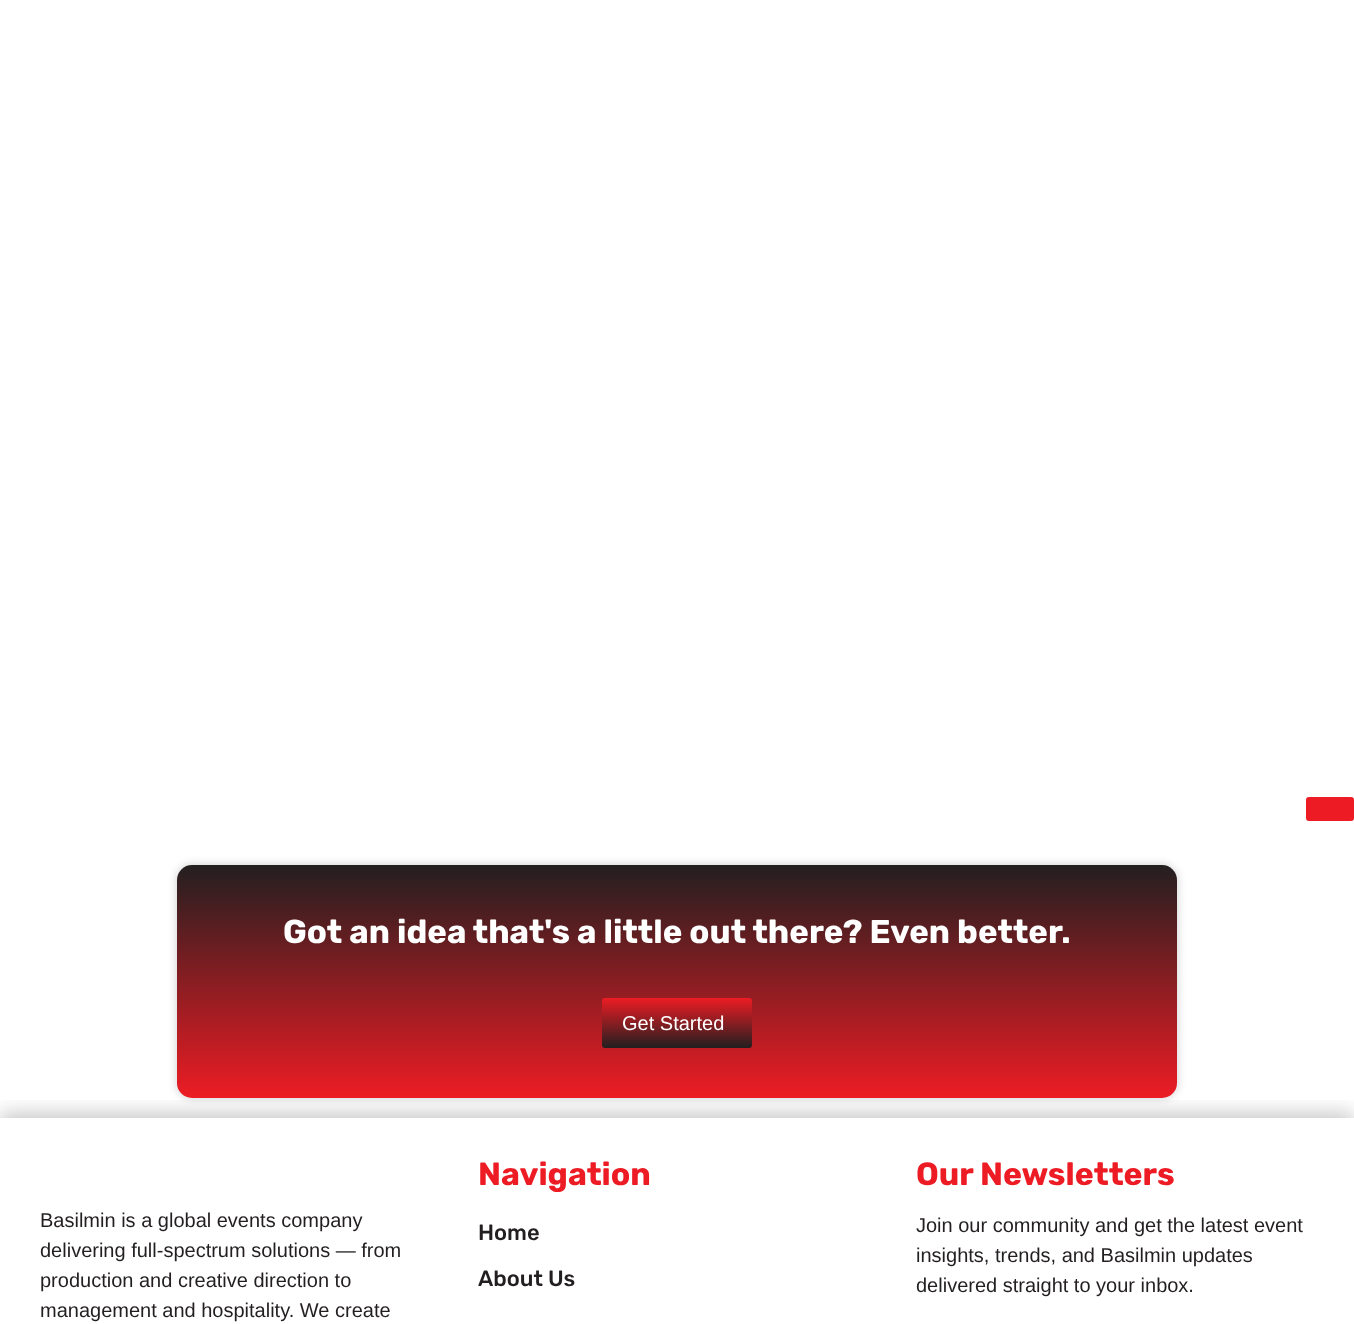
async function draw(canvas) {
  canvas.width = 1354
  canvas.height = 1324
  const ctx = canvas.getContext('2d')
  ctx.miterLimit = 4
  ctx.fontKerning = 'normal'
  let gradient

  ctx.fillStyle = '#fff'
  ctx.fillRect(0, 0, 1354, 1324)
  ctx.fillStyle = '#ed1c24'
  ctx.beginPath()
  ctx.roundRect(1306, 797, 48, 24, 3)
  ctx.fill()
  ctx.fillStyle = '#00000033'
  ctx.filter = 'blur(5px)'
  ctx.beginPath()
  ctx.roundRect(177, 865, 1000, 233, 15)
  ctx.fill()
  ctx.filter = 'none'
  gradient = ctx.createLinearGradient(677, 1098, 677, 865)
  gradient.addColorStop(0, '#ed1c24')
  gradient.addColorStop(1, '#231f20')
  ctx.fillStyle = gradient
  ctx.beginPath()
  ctx.roundRect(177, 865, 1000, 233, 15)
  ctx.fill()
  ctx.font = 'bold 33px Rubik'
  ctx.fillStyle = '#fff'
  ctx.fillText('Got an idea that\'s a little out there? Even better.', 283, 943)
  gradient = ctx.createLinearGradient(677, 998, 677, 1048)
  gradient.addColorStop(0, '#ed1c24')
  gradient.addColorStop(1, '#231f20')
  ctx.fillStyle = gradient
  ctx.beginPath()
  ctx.roundRect(602, 998, 150, 50, 3)
  ctx.fill()
  ctx.font = '20px Liberation Sans'
  ctx.fillStyle = '#fff'
  ctx.fillText('Get Started', 622, 1030)
  ctx.save()
  ctx.beginPath()
  ctx.rect(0, 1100, 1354, 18)
  ctx.clip()
  ctx.fillStyle = '#00000038'
  ctx.filter = 'blur(10px)'
  ctx.beginPath()
  ctx.rect(0, 1113, 1354, 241)
  ctx.fill()
  ctx.filter = 'none'
  ctx.restore()
  ctx.fillStyle = '#231f20'
  ctx.fillText('Basilmin is a global events company', 40, 1227)
  ctx.fillText('delivering full-spectrum solutions — from', 40, 1257)
  ctx.fillText('production and creative direction to', 40, 1287)
  ctx.fillText('management and hospitality. We create', 40, 1317)
  ctx.font = 'bold 32px Rubik'
  ctx.fillStyle = '#ed1c24'
  ctx.fillText('Navigation', 478, 1185)
  ctx.font = '500 22px Rubik'
  ctx.fillStyle = '#231f20'
  ctx.fillText('Home', 478, 1240)
  ctx.fillText('About Us', 478, 1286)
  ctx.font = 'bold 32px Rubik'
  ctx.fillStyle = '#ed1c24'
  ctx.fillText('Our Newsletters', 916, 1185)
  ctx.font = '20px Liberation Sans'
  ctx.fillStyle = '#231f20'
  ctx.fillText('Join our community and get the latest event', 916, 1232)
  ctx.fillText('insights, trends, and Basilmin updates', 916, 1262)
  ctx.fillText('delivered straight to your inbox.', 916, 1292)
}

draw(document.querySelector('canvas'))
